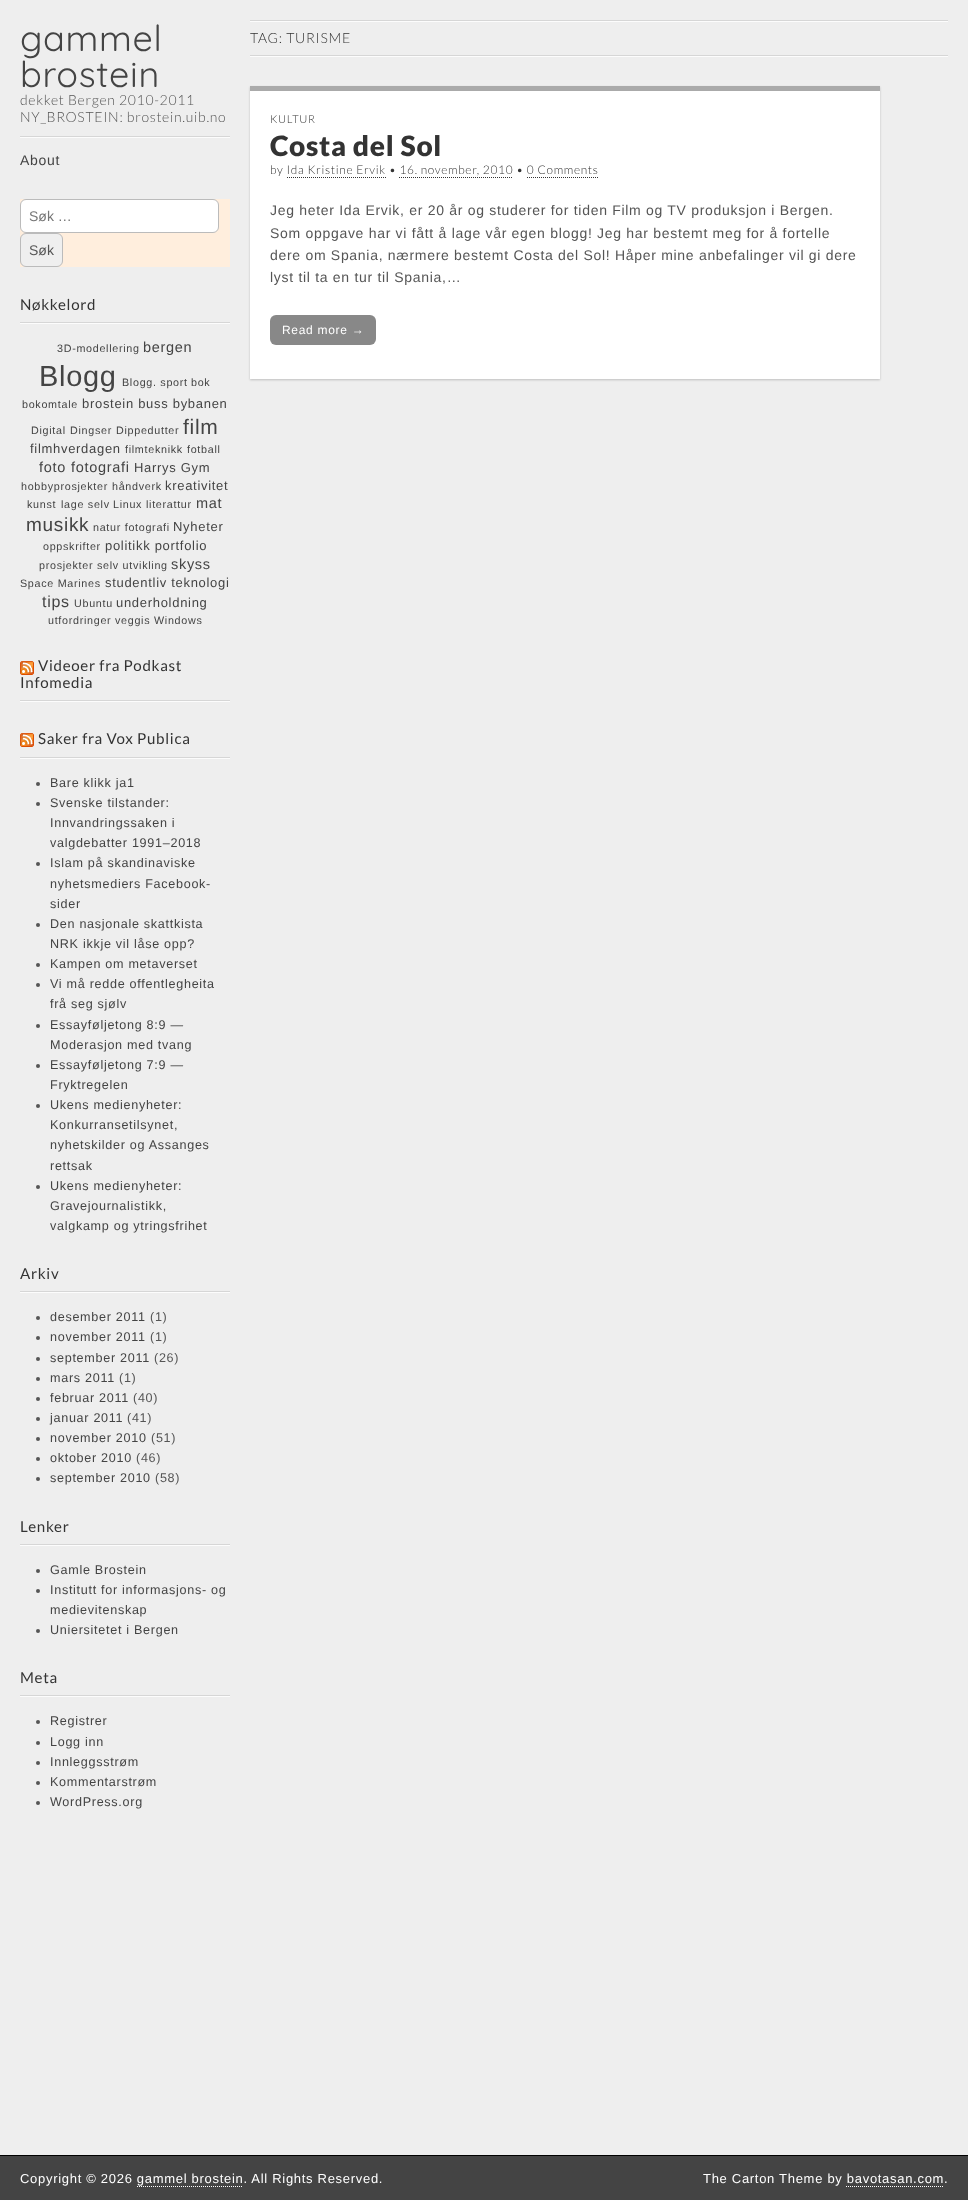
async function draw(canvas) {
  canvas.width = 968
  canvas.height = 2200
  const ctx = canvas.getContext('2d')
  ctx.miterLimit = 4
  ctx.fontKerning = 'normal'
  async function loadImage(src) {
    const img = new Image()
    img.src = src
    await img.decode()
    return img
  }

  ctx.fillStyle = '#eee'
  ctx.fillRect(0, 0, 968, 2200)
  ctx.fillStyle = '#fcfcfc'
  ctx.fillRect(20, 137, 210, 1)
  ctx.fillStyle = '#d6d6d6'
  ctx.fillRect(20, 136, 210, 1)
  ctx.letterSpacing = '0.7px'
  ctx.font = '300 36px Quicksand'
  ctx.fillStyle = '#444'
  ctx.fillText('gammel', 20, 51)
  ctx.fillText('brostein', 20, 87)
  ctx.font = '300 14px Lato'
  ctx.fillStyle = '#555'
  ctx.fillText('dekket Bergen 2010-2011', 20, 105)
  ctx.fillText('NY_BROSTEIN: brostein.uib.no', 20, 122)
  ctx.font = '14px Liberation Sans'
  ctx.fillStyle = '#444'
  ctx.fillText('About', 20, 165)
  ctx.fillStyle = '#fed'
  ctx.fillRect(20, 199, 210, 68)
  ctx.fillStyle = '#fff'
  ctx.beginPath()
  ctx.roundRect(20.5, 199.5, 198, 33, 5.5)
  ctx.fill()
  ctx.strokeStyle = '#bbb'
  ctx.stroke()
  ctx.letterSpacing = '0px'
  ctx.fillStyle = '#757575'
  ctx.fillText('Søk …', 29, 221)
  ctx.fillStyle = '#efefef'
  ctx.beginPath()
  ctx.roundRect(20.5, 233.5, 42, 33, 5.5)
  ctx.fill()
  ctx.stroke()
  ctx.fillStyle = '#555'
  ctx.fillText('Søk', 29, 255)
  ctx.fillStyle = '#fcfcfc'
  ctx.fillRect(20, 323, 210, 1)
  ctx.fillStyle = '#d6d6d6'
  ctx.fillRect(20, 322, 210, 1)
  ctx.letterSpacing = '0.7px'
  ctx.font = '15.1px Lato'
  ctx.fillStyle = '#333'
  ctx.fillText('Nøkkelord', 20, 310)
  ctx.font = '10.75px Liberation Sans'
  ctx.fillStyle = '#444'
  ctx.fillText('3D-modellering', 57, 352)
  ctx.font = '14.5px Liberation Sans'
  ctx.fillText('bergen', 143, 352)
  ctx.font = '29px Liberation Sans'
  ctx.fillText('Blogg', 39, 386)
  ctx.font = '10.75px Liberation Sans'
  ctx.fillText('Blogg. sport', 122, 386)
  ctx.fillText('bok', 191, 386)
  ctx.fillText('bokomtale', 22, 408)
  ctx.font = '13px Liberation Sans'
  ctx.fillText('brostein buss bybanen', 82, 408)
  ctx.font = '10.75px Liberation Sans'
  ctx.fillText('Digital', 31, 434)
  ctx.fillText('Dingser', 70, 434)
  ctx.fillText('Dippedutter', 116, 434)
  ctx.font = '21px Liberation Sans'
  ctx.fillText('film', 183, 434)
  ctx.font = '13px Liberation Sans'
  ctx.fillText('filmhverdagen', 30, 453)
  ctx.font = '10.75px Liberation Sans'
  ctx.fillText('filmteknikk', 125, 453)
  ctx.fillText('fotball', 187, 453)
  ctx.font = '14.5px Liberation Sans'
  ctx.fillText('foto', 39, 472)
  ctx.fillText('fotografi', 71, 472)
  ctx.font = '13px Liberation Sans'
  ctx.fillText('Harrys Gym', 134, 472)
  ctx.font = '10.75px Liberation Sans'
  ctx.fillText('hobbyprosjekter', 21, 490)
  ctx.fillText('håndverk', 112, 490)
  ctx.font = '13px Liberation Sans'
  ctx.fillText('kreativitet', 165, 490)
  ctx.font = '10.75px Liberation Sans'
  ctx.fillText('kunst', 27, 508)
  ctx.fillText('lage selv', 61, 508)
  ctx.fillText('Linux', 113, 508)
  ctx.fillText('literattur', 146, 508)
  ctx.font = '14.5px Liberation Sans'
  ctx.fillText('mat', 196, 508)
  ctx.font = '19px Liberation Sans'
  ctx.fillText('musikk', 26, 531)
  ctx.font = '10.75px Liberation Sans'
  ctx.fillText('natur fotografi', 93, 531)
  ctx.font = '13px Liberation Sans'
  ctx.fillText('Nyheter', 173, 531)
  ctx.font = '10.75px Liberation Sans'
  ctx.fillText('oppskrifter', 43, 550)
  ctx.font = '13px Liberation Sans'
  ctx.fillText('politikk portfolio', 105, 550)
  ctx.font = '10.75px Liberation Sans'
  ctx.fillText('prosjekter', 39, 569)
  ctx.fillText('selv utvikling', 97, 569)
  ctx.font = '14.5px Liberation Sans'
  ctx.fillText('skyss', 171, 569)
  ctx.font = '10.75px Liberation Sans'
  ctx.fillText('Space Marines', 20, 587)
  ctx.font = '13px Liberation Sans'
  ctx.fillText('studentliv teknologi', 105, 587)
  ctx.font = '16px Liberation Sans'
  ctx.fillText('tips', 42, 607)
  ctx.font = '10.75px Liberation Sans'
  ctx.fillText('Ubuntu', 74, 607)
  ctx.font = '13px Liberation Sans'
  ctx.fillText('underholdning', 116, 607)
  ctx.font = '10.75px Liberation Sans'
  ctx.fillText('utfordringer', 48, 624)
  ctx.fillText('veggis', 115, 624)
  ctx.fillText('Windows', 154, 624)
  ctx.fillStyle = '#fcfcfc'
  ctx.fillRect(20, 701, 210, 1)
  ctx.fillStyle = '#d6d6d6'
  ctx.fillRect(20, 700, 210, 1)
  ctx.drawImage(await loadImage('image0.png'), 20, 661, 14, 14)
  ctx.font = '15.1px Lato'
  ctx.fillStyle = '#333'
  ctx.fillText('Videoer fra Podkast', 38, 671)
  ctx.fillText('Infomedia', 20, 688)
  ctx.fillStyle = '#fcfcfc'
  ctx.fillRect(20, 758, 210, 1)
  ctx.fillStyle = '#d6d6d6'
  ctx.fillRect(20, 757, 210, 1)
  ctx.drawImage(await loadImage('image0.png'), 20, 733, 14, 14)
  ctx.fillStyle = '#333'
  ctx.fillText('Saker fra Vox Publica', 38, 744)
  ctx.fillStyle = '#555'
  ctx.beginPath()
  ctx.arc(38, 784, 2, 0, 2 * Math.PI)
  ctx.fill()
  ctx.font = '12.6px Liberation Sans'
  ctx.fillStyle = '#444'
  ctx.fillText('Bare klikk ja1', 50, 787)
  ctx.fillStyle = '#555'
  ctx.beginPath()
  ctx.arc(38, 804, 2, 0, 2 * Math.PI)
  ctx.fill()
  ctx.fillStyle = '#444'
  ctx.fillText('Svenske tilstander:', 50, 807)
  ctx.fillText('Innvandringssaken i', 50, 827)
  ctx.fillText('valgdebatter 1991–2018', 50, 847)
  ctx.fillStyle = '#555'
  ctx.beginPath()
  ctx.arc(38, 864, 2, 0, 2 * Math.PI)
  ctx.fill()
  ctx.fillStyle = '#444'
  ctx.fillText('Islam på skandinaviske', 50, 867)
  ctx.fillText('nyhetsmediers Facebook-', 50, 888)
  ctx.fillText('sider', 50, 908)
  ctx.fillStyle = '#555'
  ctx.beginPath()
  ctx.arc(38, 925, 2, 0, 2 * Math.PI)
  ctx.fill()
  ctx.fillStyle = '#444'
  ctx.fillText('Den nasjonale skattkista', 50, 928)
  ctx.fillText('NRK ikkje vil låse opp?', 50, 948)
  ctx.fillStyle = '#555'
  ctx.beginPath()
  ctx.arc(38, 965, 2, 0, 2 * Math.PI)
  ctx.fill()
  ctx.fillStyle = '#444'
  ctx.fillText('Kampen om metaverset', 50, 968)
  ctx.fillStyle = '#555'
  ctx.beginPath()
  ctx.arc(38, 985, 2, 0, 2 * Math.PI)
  ctx.fill()
  ctx.fillStyle = '#444'
  ctx.fillText('Vi må redde offentlegheita', 50, 988)
  ctx.fillText('frå seg sjølv', 50, 1008)
  ctx.fillStyle = '#555'
  ctx.beginPath()
  ctx.arc(38, 1026, 2, 0, 2 * Math.PI)
  ctx.fill()
  ctx.fillStyle = '#444'
  ctx.fillText('Essayføljetong 8:9 —', 50, 1029)
  ctx.fillText('Moderasjon med tvang', 50, 1049)
  ctx.fillStyle = '#555'
  ctx.beginPath()
  ctx.arc(38, 1066, 2, 0, 2 * Math.PI)
  ctx.fill()
  ctx.fillStyle = '#444'
  ctx.fillText('Essayføljetong 7:9 —', 50, 1069)
  ctx.fillText('Fryktregelen', 50, 1089)
  ctx.fillStyle = '#555'
  ctx.beginPath()
  ctx.arc(38, 1106, 2, 0, 2 * Math.PI)
  ctx.fill()
  ctx.fillStyle = '#444'
  ctx.fillText('Ukens medienyheter:', 50, 1109)
  ctx.fillText('Konkurransetilsynet,', 50, 1129)
  ctx.fillText('nyhetskilder og Assanges', 50, 1149)
  ctx.fillText('rettsak', 50, 1170)
  ctx.fillStyle = '#555'
  ctx.beginPath()
  ctx.arc(38, 1187, 2, 0, 2 * Math.PI)
  ctx.fill()
  ctx.fillStyle = '#444'
  ctx.fillText('Ukens medienyheter:', 50, 1190)
  ctx.fillText('Gravejournalistikk,', 50, 1210)
  ctx.fillText('valgkamp og ytringsfrihet', 50, 1230)
  ctx.fillStyle = '#fcfcfc'
  ctx.fillRect(20, 1292, 210, 1)
  ctx.fillStyle = '#d6d6d6'
  ctx.fillRect(20, 1291, 210, 1)
  ctx.font = '15.1px Lato'
  ctx.fillStyle = '#333'
  ctx.fillText('Arkiv', 20, 1279)
  ctx.fillStyle = '#555'
  ctx.beginPath()
  ctx.arc(38, 1318, 2, 0, 2 * Math.PI)
  ctx.fill()
  ctx.font = '12.6px Liberation Sans'
  ctx.fillStyle = '#444'
  ctx.fillText('desember 2011', 50, 1321)
  ctx.fillStyle = '#555'
  ctx.fillText('(1)', 150, 1321)
  ctx.beginPath()
  ctx.arc(38, 1338, 2, 0, 2 * Math.PI)
  ctx.fill()
  ctx.fillStyle = '#444'
  ctx.fillText('november 2011', 50, 1341)
  ctx.fillStyle = '#555'
  ctx.fillText('(1)', 150, 1341)
  ctx.beginPath()
  ctx.arc(38, 1359, 2, 0, 2 * Math.PI)
  ctx.fill()
  ctx.fillStyle = '#444'
  ctx.fillText('september 2011', 50, 1362)
  ctx.fillStyle = '#555'
  ctx.fillText('(26)', 154, 1362)
  ctx.beginPath()
  ctx.arc(38, 1379, 2, 0, 2 * Math.PI)
  ctx.fill()
  ctx.fillStyle = '#444'
  ctx.fillText('mars 2011', 50, 1382)
  ctx.fillStyle = '#555'
  ctx.fillText('(1)', 119, 1382)
  ctx.beginPath()
  ctx.arc(38, 1399, 2, 0, 2 * Math.PI)
  ctx.fill()
  ctx.fillStyle = '#444'
  ctx.fillText('februar 2011', 50, 1402)
  ctx.fillStyle = '#555'
  ctx.fillText('(40)', 133, 1402)
  ctx.beginPath()
  ctx.arc(38, 1419, 2, 0, 2 * Math.PI)
  ctx.fill()
  ctx.fillStyle = '#444'
  ctx.fillText('januar 2011', 50, 1422)
  ctx.fillStyle = '#555'
  ctx.fillText('(41)', 127, 1422)
  ctx.beginPath()
  ctx.arc(38, 1439, 2, 0, 2 * Math.PI)
  ctx.fill()
  ctx.fillStyle = '#444'
  ctx.fillText('november 2010', 50, 1442)
  ctx.fillStyle = '#555'
  ctx.fillText('(51)', 151, 1442)
  ctx.beginPath()
  ctx.arc(38, 1459, 2, 0, 2 * Math.PI)
  ctx.fill()
  ctx.fillStyle = '#444'
  ctx.fillText('oktober 2010', 50, 1462)
  ctx.fillStyle = '#555'
  ctx.fillText('(46)', 136, 1462)
  ctx.beginPath()
  ctx.arc(38, 1479, 2, 0, 2 * Math.PI)
  ctx.fill()
  ctx.fillStyle = '#444'
  ctx.fillText('september 2010', 50, 1482)
  ctx.fillStyle = '#555'
  ctx.fillText('(58)', 155, 1482)
  ctx.fillStyle = '#fcfcfc'
  ctx.fillRect(20, 1545, 210, 1)
  ctx.fillStyle = '#d6d6d6'
  ctx.fillRect(20, 1544, 210, 1)
  ctx.font = '15.1px Lato'
  ctx.fillStyle = '#333'
  ctx.fillText('Lenker', 20, 1532)
  ctx.fillStyle = '#555'
  ctx.beginPath()
  ctx.arc(38, 1571, 2, 0, 2 * Math.PI)
  ctx.fill()
  ctx.font = '12.6px Liberation Sans'
  ctx.fillStyle = '#444'
  ctx.fillText('Gamle Brostein', 50, 1574)
  ctx.fillStyle = '#555'
  ctx.beginPath()
  ctx.arc(38, 1591, 2, 0, 2 * Math.PI)
  ctx.fill()
  ctx.fillStyle = '#444'
  ctx.fillText('Institutt for informasjons- og', 50, 1594)
  ctx.fillText('medievitenskap', 50, 1614)
  ctx.fillStyle = '#555'
  ctx.beginPath()
  ctx.arc(38, 1631, 2, 0, 2 * Math.PI)
  ctx.fill()
  ctx.fillStyle = '#444'
  ctx.fillText('Uniersitetet i Bergen', 50, 1634)
  ctx.fillStyle = '#fcfcfc'
  ctx.fillRect(20, 1696, 210, 1)
  ctx.fillStyle = '#d6d6d6'
  ctx.fillRect(20, 1695, 210, 1)
  ctx.font = '15.1px Lato'
  ctx.fillStyle = '#333'
  ctx.fillText('Meta', 20, 1683)
  ctx.fillStyle = '#555'
  ctx.beginPath()
  ctx.arc(38, 1722, 2, 0, 2 * Math.PI)
  ctx.fill()
  ctx.font = '12.6px Liberation Sans'
  ctx.fillStyle = '#444'
  ctx.fillText('Registrer', 50, 1725)
  ctx.fillStyle = '#555'
  ctx.beginPath()
  ctx.arc(38, 1743, 2, 0, 2 * Math.PI)
  ctx.fill()
  ctx.fillStyle = '#444'
  ctx.fillText('Logg inn', 50, 1746)
  ctx.fillStyle = '#555'
  ctx.beginPath()
  ctx.arc(38, 1763, 2, 0, 2 * Math.PI)
  ctx.fill()
  ctx.fillStyle = '#444'
  ctx.fillText('Innleggsstrøm', 50, 1766)
  ctx.fillStyle = '#555'
  ctx.beginPath()
  ctx.arc(38, 1783, 2, 0, 2 * Math.PI)
  ctx.fill()
  ctx.fillStyle = '#444'
  ctx.fillText('Kommentarstrøm', 50, 1786)
  ctx.fillStyle = '#555'
  ctx.beginPath()
  ctx.arc(38, 1803, 2, 0, 2 * Math.PI)
  ctx.fill()
  ctx.fillStyle = '#444'
  ctx.fillText('WordPress.org', 50, 1806)
  ctx.fillStyle = '#fcfcfc'
  ctx.fillRect(250, 56, 698, 1)
  ctx.fillRect(250, 21, 698, 1)
  ctx.fillStyle = '#d6d6d6'
  ctx.fillRect(250, 20, 698, 1)
  ctx.fillRect(250, 55, 698, 1)
  ctx.font = '300 14px Lato'
  ctx.fillStyle = '#333'
  ctx.fillText('TAG: TURISME', 250, 43)
  ctx.fillStyle = '#00000033'
  ctx.filter = 'blur(1px)'
  ctx.beginPath()
  ctx.rect(250, 87, 630, 293)
  ctx.fill()
  ctx.filter = 'none'
  ctx.fillStyle = '#fff'
  ctx.fillRect(250, 91, 630, 288)
  ctx.fillStyle = '#aaa'
  ctx.fillRect(250, 86, 630, 5)
  ctx.font = '300 11px Lato'
  ctx.fillStyle = '#333'
  ctx.fillText('KULTUR', 270, 123)
  ctx.font = '900 28px Lato'
  ctx.fillText('Costa del Sol', 270, 156)
  ctx.font = '300 11.9px Lato'
  ctx.fillText('by Ida Kristine Ervik • 16. november, 2010 • 0 Comments', 270, 174)
  ctx.beginPath()
  ctx.moveTo(287, 177.5)
  ctx.lineTo(386, 177.5)
  ctx.strokeStyle = '#333'
  ctx.setLineDash([1, 1])
  ctx.stroke()
  ctx.beginPath()
  ctx.moveTo(399, 177.5)
  ctx.lineTo(513, 177.5)
  ctx.stroke()
  ctx.beginPath()
  ctx.moveTo(527, 177.5)
  ctx.lineTo(599, 177.5)
  ctx.stroke()
  ctx.font = '14px Liberation Sans'
  ctx.fillStyle = '#555'
  ctx.fillText('Jeg heter Ida Ervik, er 20 år og studerer for tiden Film og TV produksjon i Bergen.', 270, 215)
  ctx.fillText('Som oppgave har vi fått å lage vår egen blogg! Jeg har bestemt meg for å fortelle', 270, 238)
  ctx.fillText('dere om Spania, nærmere bestemt Costa del Sol! Håper mine anbefalinger vil gi dere', 270, 260)
  ctx.fillText('lyst til ta en tur til Spania,…', 270, 282)
  ctx.fillStyle = '#888'
  ctx.beginPath()
  ctx.roundRect(270, 315, 106, 30, 6)
  ctx.fill()
  ctx.font = '12px Liberation Sans'
  ctx.fillStyle = '#fff'
  ctx.fillText('Read more →', 282, 334)
  ctx.fillStyle = '#444'
  ctx.fillRect(0, 2156, 968, 44)
  ctx.fillStyle = '#000'
  ctx.fillRect(0, 2155, 968, 1)
  ctx.font = '13px Liberation Sans'
  ctx.fillStyle = '#fff'
  ctx.fillText('Copyright © 2026 gammel brostein. All Rights Reserved.', 20, 2183)
  ctx.beginPath()
  ctx.moveTo(137, 2186.5)
  ctx.lineTo(243, 2186.5)
  ctx.strokeStyle = '#fff'
  ctx.stroke()
  ctx.fillText('The Carton Theme by bavotasan.com.', 703, 2183)
  ctx.beginPath()
  ctx.moveTo(846, 2186.5)
  ctx.lineTo(944, 2186.5)
  ctx.stroke()
}

draw(document.querySelector('canvas'))
